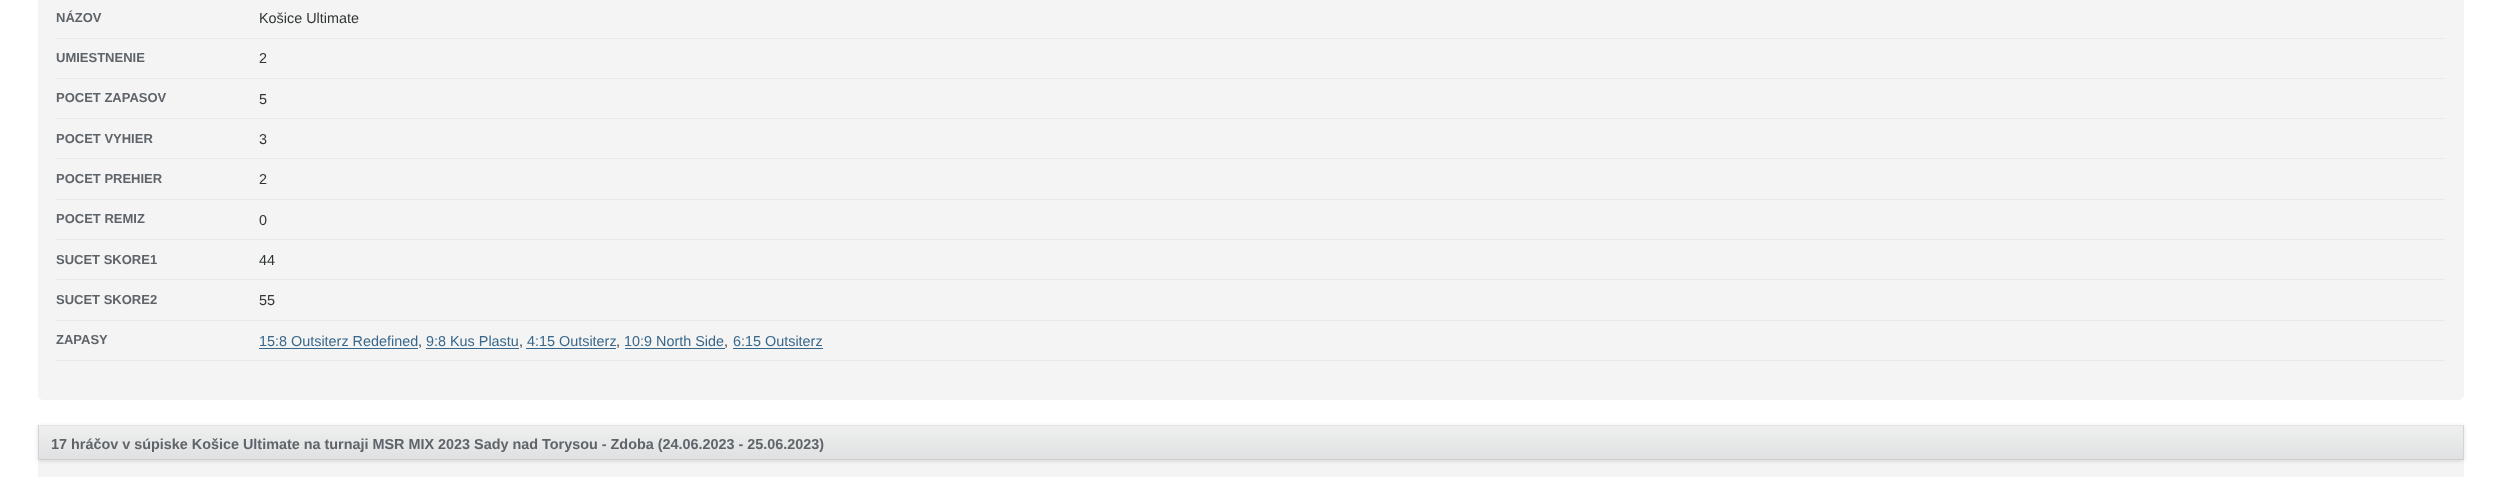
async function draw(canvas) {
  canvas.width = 2501
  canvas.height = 477
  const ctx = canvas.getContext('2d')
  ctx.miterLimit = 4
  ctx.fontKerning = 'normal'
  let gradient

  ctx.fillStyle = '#fff'
  ctx.fillRect(0, 0, 2501, 477)
  ctx.fillStyle = '#f4f4f4'
  ctx.beginPath()
  ctx.roundRect(38, -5, 2426, 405, 5)
  ctx.fill()
  ctx.fillStyle = '#e8e8e8'
  ctx.fillRect(56, 38, 2389, 1)
  ctx.font = 'bold 13px Liberation Sans'
  ctx.fillStyle = '#5e6469'
  ctx.fillText('NÁZOV', 56, 22)
  ctx.font = '14.4px Liberation Sans'
  ctx.fillStyle = '#323537'
  ctx.fillText('Košice Ultimate', 259, 23)
  ctx.fillStyle = '#e8e8e8'
  ctx.fillRect(56, 78, 2389, 1)
  ctx.font = 'bold 13px Liberation Sans'
  ctx.fillStyle = '#5e6469'
  ctx.fillText('UMIESTNENIE', 56, 62)
  ctx.font = '14.4px Liberation Sans'
  ctx.fillStyle = '#323537'
  ctx.fillText('2', 259, 63)
  ctx.fillStyle = '#e8e8e8'
  ctx.fillRect(56, 118, 2389, 1)
  ctx.font = 'bold 13px Liberation Sans'
  ctx.fillStyle = '#5e6469'
  ctx.fillText('POCET ZAPASOV', 56, 102)
  ctx.font = '14.4px Liberation Sans'
  ctx.fillStyle = '#323537'
  ctx.fillText('5', 259, 104)
  ctx.fillStyle = '#e8e8e8'
  ctx.fillRect(56, 158, 2389, 1)
  ctx.font = 'bold 13px Liberation Sans'
  ctx.fillStyle = '#5e6469'
  ctx.fillText('POCET VYHIER', 56, 143)
  ctx.font = '14.4px Liberation Sans'
  ctx.fillStyle = '#323537'
  ctx.fillText('3', 259, 144)
  ctx.fillStyle = '#e8e8e8'
  ctx.fillRect(56, 199, 2389, 1)
  ctx.font = 'bold 13px Liberation Sans'
  ctx.fillStyle = '#5e6469'
  ctx.fillText('POCET PREHIER', 56, 183)
  ctx.font = '14.4px Liberation Sans'
  ctx.fillStyle = '#323537'
  ctx.fillText('2', 259, 184)
  ctx.fillStyle = '#e8e8e8'
  ctx.fillRect(56, 239, 2389, 1)
  ctx.font = 'bold 13px Liberation Sans'
  ctx.fillStyle = '#5e6469'
  ctx.fillText('POCET REMIZ', 56, 223)
  ctx.font = '14.4px Liberation Sans'
  ctx.fillStyle = '#323537'
  ctx.fillText('0', 259, 225)
  ctx.fillStyle = '#e8e8e8'
  ctx.fillRect(56, 279, 2389, 1)
  ctx.font = 'bold 13px Liberation Sans'
  ctx.fillStyle = '#5e6469'
  ctx.fillText('SUCET SKORE1', 56, 264)
  ctx.font = '14.4px Liberation Sans'
  ctx.fillStyle = '#323537'
  ctx.fillText('44', 259, 265)
  ctx.fillStyle = '#e8e8e8'
  ctx.fillRect(56, 320, 2389, 1)
  ctx.font = 'bold 13px Liberation Sans'
  ctx.fillStyle = '#5e6469'
  ctx.fillText('SUCET SKORE2', 56, 304)
  ctx.font = '14.4px Liberation Sans'
  ctx.fillStyle = '#323537'
  ctx.fillText('55', 259, 305)
  ctx.fillStyle = '#e8e8e8'
  ctx.fillRect(56, 360, 2389, 1)
  ctx.font = 'bold 13px Liberation Sans'
  ctx.fillStyle = '#5e6469'
  ctx.fillText('ZAPASY', 56, 344)
  ctx.font = '14.4px Liberation Sans'
  ctx.fillStyle = '#38678b'
  ctx.fillText('15:8 Outsiterz Redefined', 259, 346)
  ctx.fillRect(259, 348, 159, 1)
  ctx.fillStyle = '#323537'
  ctx.fillText(',', 418, 346)
  ctx.fillStyle = '#38678b'
  ctx.fillText('9:8 Kus Plastu', 426, 346)
  ctx.fillRect(426, 348, 93, 1)
  ctx.fillStyle = '#323537'
  ctx.fillText(',', 519, 346)
  ctx.fillStyle = '#38678b'
  ctx.fillText('4:15 Outsiterz', 527, 346)
  ctx.fillRect(526, 348, 90, 1)
  ctx.fillStyle = '#323537'
  ctx.fillText(',', 616, 346)
  ctx.fillStyle = '#38678b'
  ctx.fillText('10:9 North Side', 624, 346)
  ctx.fillRect(625, 348, 100, 1)
  ctx.fillStyle = '#323537'
  ctx.fillText(',', 724, 346)
  ctx.fillStyle = '#38678b'
  ctx.fillText('6:15 Outsiterz', 733, 346)
  ctx.fillRect(733, 348, 90, 1)
  ctx.fillStyle = '#f4f4f4'
  ctx.fillRect(38, 460, 2426, 17)
  ctx.fillStyle = '#0000001f'
  ctx.filter = 'blur(2px)'
  ctx.beginPath()
  ctx.rect(38, 426, 2426, 35)
  ctx.fill()
  ctx.filter = 'none'
  gradient = ctx.createLinearGradient(1251, 426, 1251, 459)
  gradient.addColorStop(0, '#efefef')
  gradient.addColorStop(1, '#dfe1e2')
  ctx.fillStyle = gradient
  ctx.fillRect(39, 427, 2424, 32)
  ctx.fillStyle = '#e6e6e6'
  ctx.fillRect(38, 425, 2426, 1)
  ctx.fillStyle = '#d4d4d4'
  ctx.fillRect(2463, 425, 1, 35)
  ctx.fillStyle = '#cdcdcd'
  ctx.fillRect(38, 459, 2426, 1)
  ctx.fillStyle = '#d4d4d4'
  ctx.fillRect(38, 425, 1, 35)
  ctx.font = 'bold 14.4px Liberation Sans'
  ctx.fillStyle = '#5e6469'
  ctx.fillText('17 hráčov v súpiske Košice Ultimate na turnaji MSR MIX 2023 Sady nad Torysou - Zdoba (24.06.2023 - 25.06.2023)', 51, 449)
}

draw(document.querySelector('canvas'))
